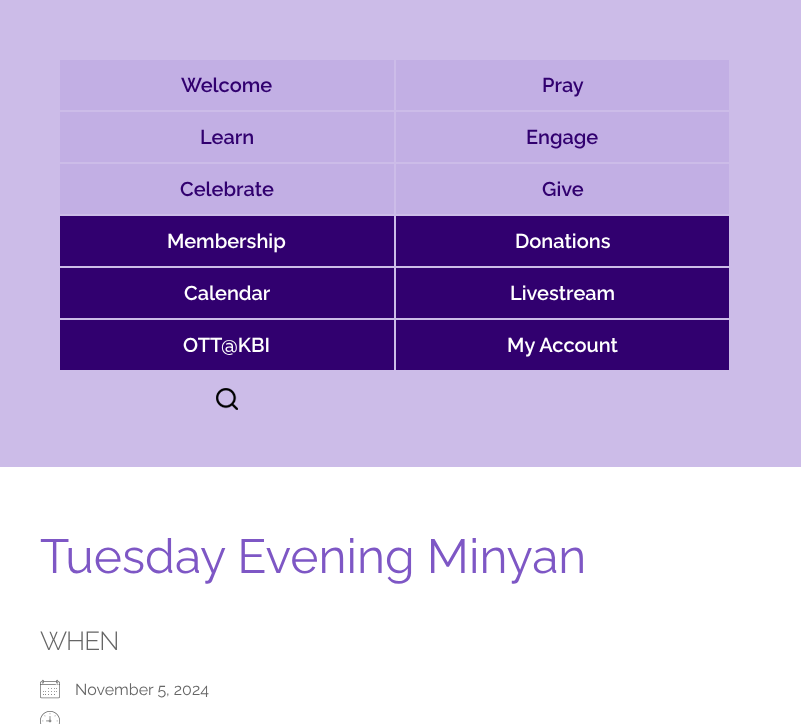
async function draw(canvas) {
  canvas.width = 801
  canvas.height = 724
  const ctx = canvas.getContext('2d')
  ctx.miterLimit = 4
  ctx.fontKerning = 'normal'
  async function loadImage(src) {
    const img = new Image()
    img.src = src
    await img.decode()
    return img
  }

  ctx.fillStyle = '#ccbce8'
  ctx.fillRect(0, 0, 801, 724)
  ctx.fillStyle = '#c2afe4'
  ctx.fillRect(60, 60, 334, 50)
  ctx.font = '600 20px Raleway'
  ctx.fillStyle = '#31006f'
  ctx.fillText('Welcome', 181, 92)
  ctx.fillStyle = '#c2afe4'
  ctx.fillRect(396, 60, 333, 50)
  ctx.fillStyle = '#31006f'
  ctx.fillText('Pray', 542, 92)
  ctx.fillStyle = '#c2afe4'
  ctx.fillRect(60, 112, 334, 50)
  ctx.fillStyle = '#31006f'
  ctx.fillText('Learn', 200, 144)
  ctx.fillStyle = '#c2afe4'
  ctx.fillRect(396, 112, 333, 50)
  ctx.fillStyle = '#31006f'
  ctx.fillText('Engage', 526, 144)
  ctx.fillStyle = '#c2afe4'
  ctx.fillRect(60, 164, 334, 50)
  ctx.fillStyle = '#31006f'
  ctx.fillText('Celebrate', 180, 196)
  ctx.fillStyle = '#c2afe4'
  ctx.fillRect(396, 164, 333, 50)
  ctx.fillStyle = '#31006f'
  ctx.fillText('Give', 542, 196)
  ctx.fillRect(60, 216, 334, 50)
  ctx.fillStyle = '#fff'
  ctx.fillText('Membership', 167, 248)
  ctx.fillStyle = '#31006f'
  ctx.fillRect(396, 216, 333, 50)
  ctx.fillStyle = '#fff'
  ctx.fillText('Donations', 515, 248)
  ctx.fillStyle = '#31006f'
  ctx.fillRect(60, 268, 334, 50)
  ctx.fillStyle = '#fff'
  ctx.fillText('Calendar', 184, 300)
  ctx.fillStyle = '#31006f'
  ctx.fillRect(396, 268, 333, 50)
  ctx.fillStyle = '#fff'
  ctx.fillText('Livestream', 510, 300)
  ctx.fillStyle = '#31006f'
  ctx.fillRect(60, 320, 334, 50)
  ctx.fillStyle = '#fff'
  ctx.fillText('OTT@KBI', 183, 352)
  ctx.fillStyle = '#31006f'
  ctx.fillRect(396, 320, 333, 50)
  ctx.fillStyle = '#fff'
  ctx.fillText('My Account', 507, 352)
  ctx.drawImage(await loadImage('image0.png'), 216, 388, 22, 22)
  ctx.fillRect(0, 467, 801, 257)
  ctx.font = '48px Raleway'
  ctx.fillStyle = '#7e57c5'
  ctx.fillText('Tuesday Evening Minyan', 40, 573)
  ctx.letterSpacing = '-1px'
  ctx.font = '300 26px Raleway'
  ctx.fillStyle = '#666'
  ctx.fillText('WHEN', 40, 650)
  ctx.drawImage(await loadImage('image1.png'), 40, 679, 20, 20)
  ctx.letterSpacing = '0px'
  ctx.font = '16px Raleway'
  ctx.fillText('November 5, 2024', 75, 695)
  ctx.drawImage(await loadImage('image2.png'), 40, 711, 20, 13)
}

draw(document.querySelector('canvas'))
